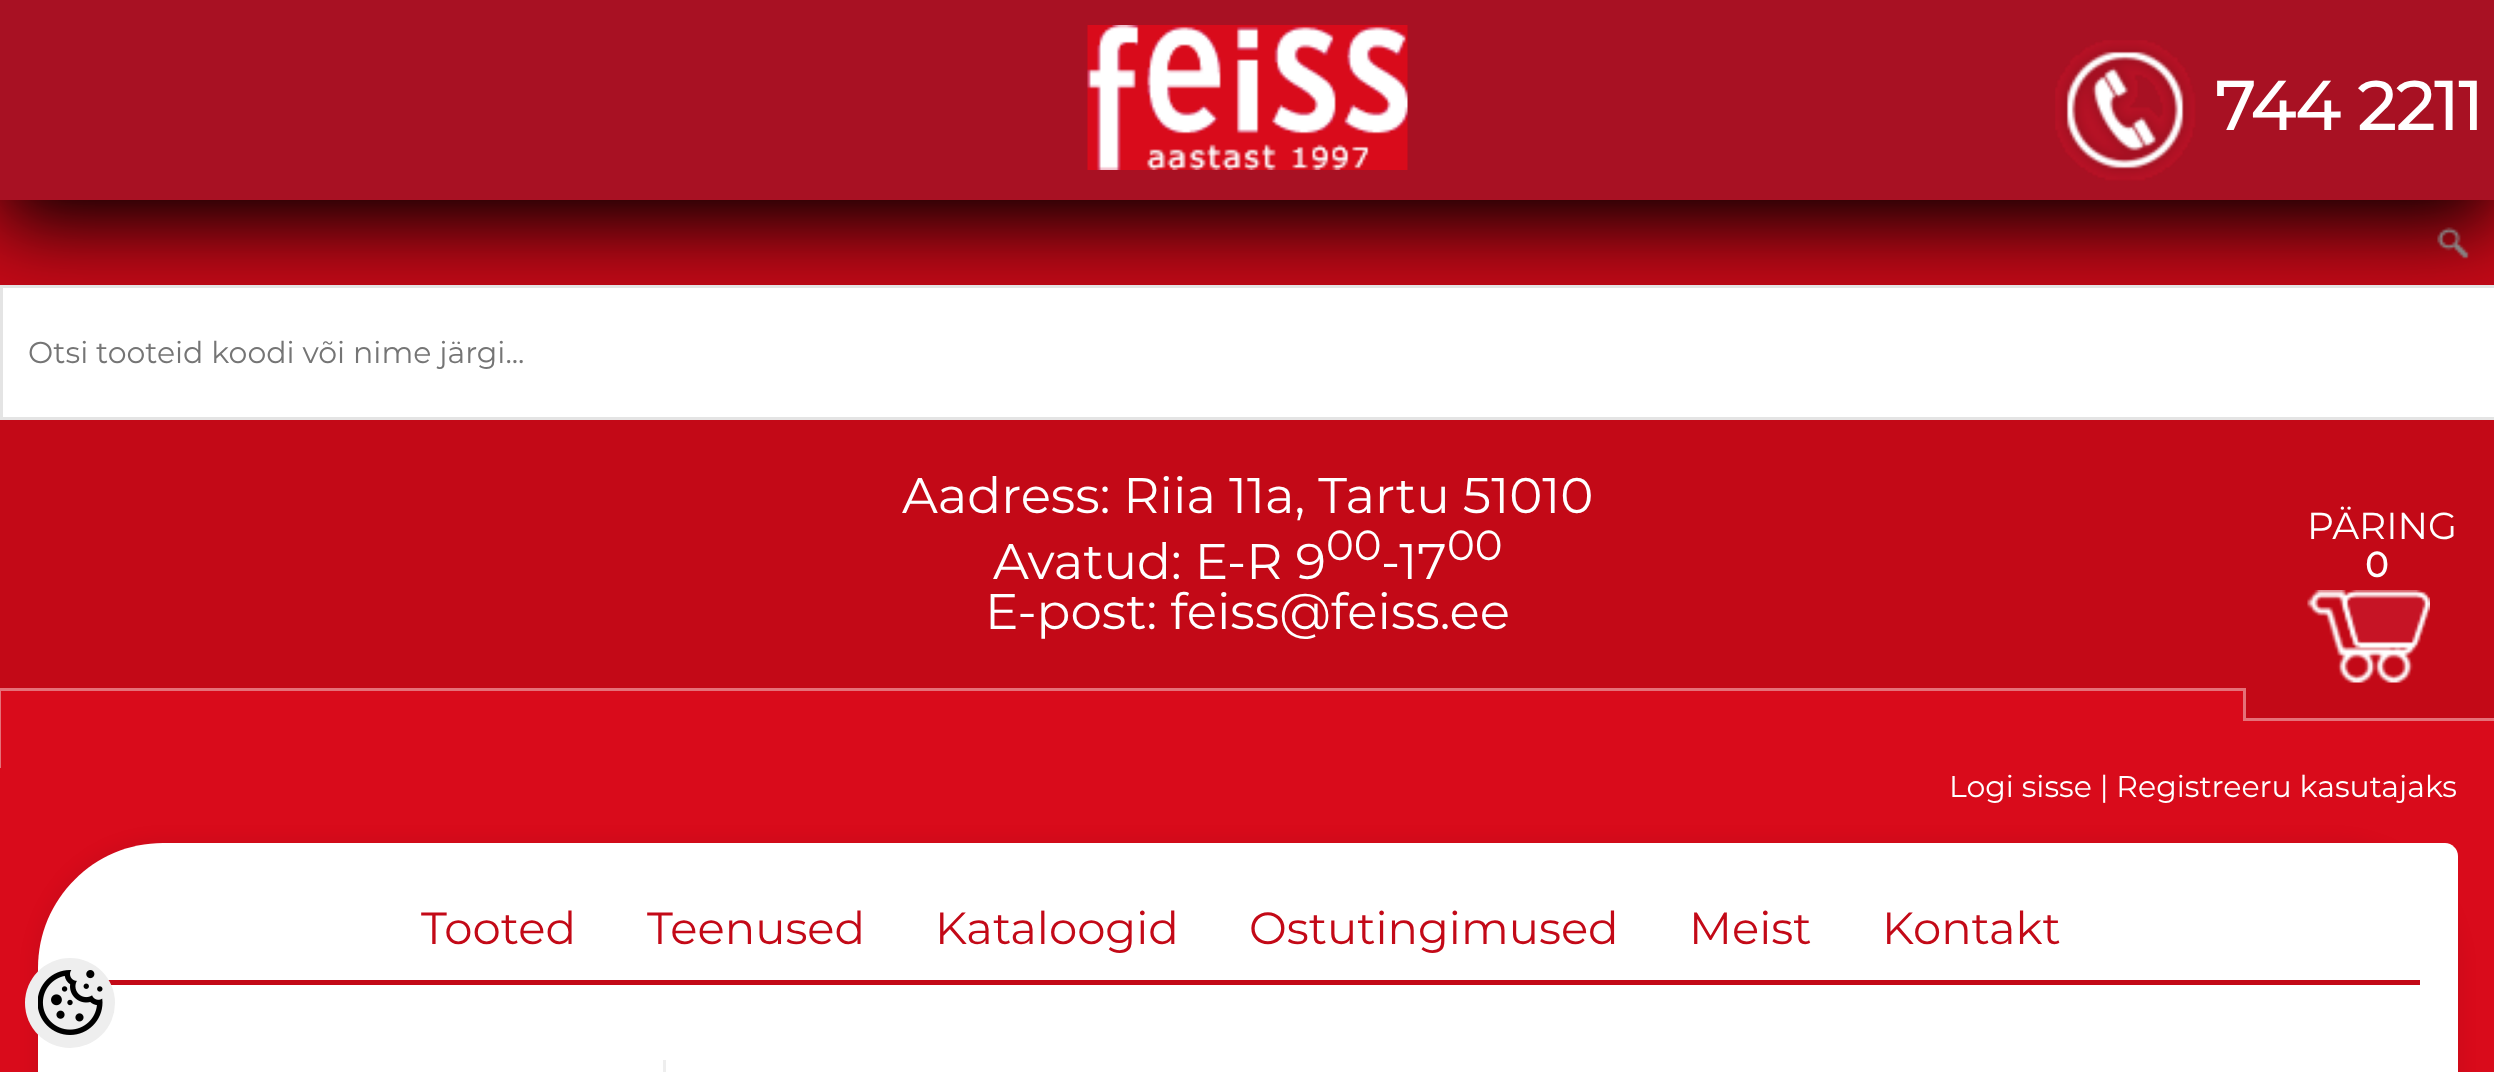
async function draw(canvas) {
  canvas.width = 2494
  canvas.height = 1072
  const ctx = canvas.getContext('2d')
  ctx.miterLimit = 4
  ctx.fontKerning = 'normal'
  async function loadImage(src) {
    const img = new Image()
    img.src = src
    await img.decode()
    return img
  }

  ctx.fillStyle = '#d90b1b'
  ctx.fillRect(0, 0, 2494, 1072)
  ctx.fillStyle = '#c30917'
  ctx.fillRect(0, 200, 2494, 488)
  ctx.fillStyle = '#000'
  ctx.filter = 'blur(40px)'
  ctx.beginPath()
  ctx.rect(0, 35, 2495, 188)
  ctx.fill()
  ctx.filter = 'none'
  ctx.fillStyle = '#a81123'
  ctx.fillRect(0, 0, 2494, 200)
  ctx.drawImage(await loadImage('image0.png'), 1087, 25, 321, 145)
  ctx.drawImage(await loadImage('image1.png'), 2055, 40, 141, 141)
  ctx.font = 'bold 67.5px Montserrat'
  ctx.fillStyle = '#fff'
  ctx.fillText('744 2211', 2215, 130)
  ctx.drawImage(await loadImage('image2.png'), 2437, 227, 33, 32)
  ctx.beginPath()
  ctx.rect(1.5, 286.5, 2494, 132)
  ctx.fill()
  ctx.strokeStyle = '#e4e4e4'
  ctx.lineWidth = 3
  ctx.stroke()
  ctx.font = '100 30px Montserrat'
  ctx.fillStyle = '#757575'
  ctx.fillText('Otsi tooteid koodi või nime järgi...', 28, 363)
  ctx.font = '100 50px Montserrat'
  ctx.fillStyle = '#fff'
  ctx.fillText('Aadress: Riia 11a, Tartu 51010', 902, 513)
  ctx.fillText('Avatud: E-R 9', 993, 579)
  ctx.font = '100 42px Montserrat'
  ctx.fillText('00', 1326, 560)
  ctx.font = '100 50px Montserrat'
  ctx.fillText('-17', 1381, 579)
  ctx.font = '100 42px Montserrat'
  ctx.fillText('00', 1447, 560)
  ctx.font = '100 50px Montserrat'
  ctx.fillText('E-post: feiss@feiss.ee', 985, 629)
  ctx.drawImage(await loadImage('image3.png'), 2307, 590, 123, 93)
  ctx.font = '100 37.5px Montserrat'
  ctx.fillText('PÄRING', 2307, 539)
  ctx.font = 'bold 35px Montserrat'
  ctx.fillText('0', 2365, 577)
  ctx.fillStyle = '#c30917'
  ctx.fillRect(2246, 688, 248, 30)
  ctx.fillStyle = '#e57179'
  ctx.fillRect(2243, 718, 251, 3)
  ctx.fillRect(2243, 688, 3, 32)
  ctx.fillRect(0, 688, 2243, 3)
  ctx.fillRect(0, 688, 1, 80)
  ctx.font = '100 30px Montserrat'
  ctx.fillStyle = '#fff'
  ctx.fillText('Logi sisse | Registreeru kasutajaks', 1949, 797)
  ctx.fillStyle = '#00000014'
  ctx.filter = 'blur(10px)'
  ctx.beginPath()
  ctx.roundRect(38, 843, 2420, 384, 125)
  ctx.fill()
  ctx.filter = 'none'
  ctx.fillStyle = '#fff'
  ctx.beginPath()
  ctx.moveTo(163, 843)
  ctx.lineTo(2445, 843)
  ctx.bezierCurveTo(2452, 843, 2458, 849, 2458, 856)
  ctx.lineTo(2458, 1072)
  ctx.bezierCurveTo(2458, 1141, 2402, 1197, 2333, 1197)
  ctx.lineTo(38, 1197)
  ctx.lineTo(38, 968)
  ctx.bezierCurveTo(38, 899, 94, 843, 163, 843)
  ctx.closePath()
  ctx.fill()
  ctx.fillStyle = '#c30917'
  ctx.fillRect(108, 980, 2312, 5)
  ctx.font = '100 45px Montserrat'
  ctx.fillText('Tooted', 421, 944)
  ctx.fillText('Teenused', 647, 944)
  ctx.fillText('Kataloogid', 935, 944)
  ctx.fillText('Ostutingimused', 1249, 944)
  ctx.fillText('Meist', 1689, 944)
  ctx.fillText('Kontakt', 1882, 944)
  ctx.fillStyle = '#eee'
  ctx.fillRect(663, 1060, 3, 12)
  ctx.beginPath()
  ctx.arc(70, 1003, 45, 0, 2 * Math.PI)
  ctx.fill()
  ctx.drawImage(await loadImage('image4.png'), 38, 970, 65, 65)
}

draw(document.querySelector('canvas'))
